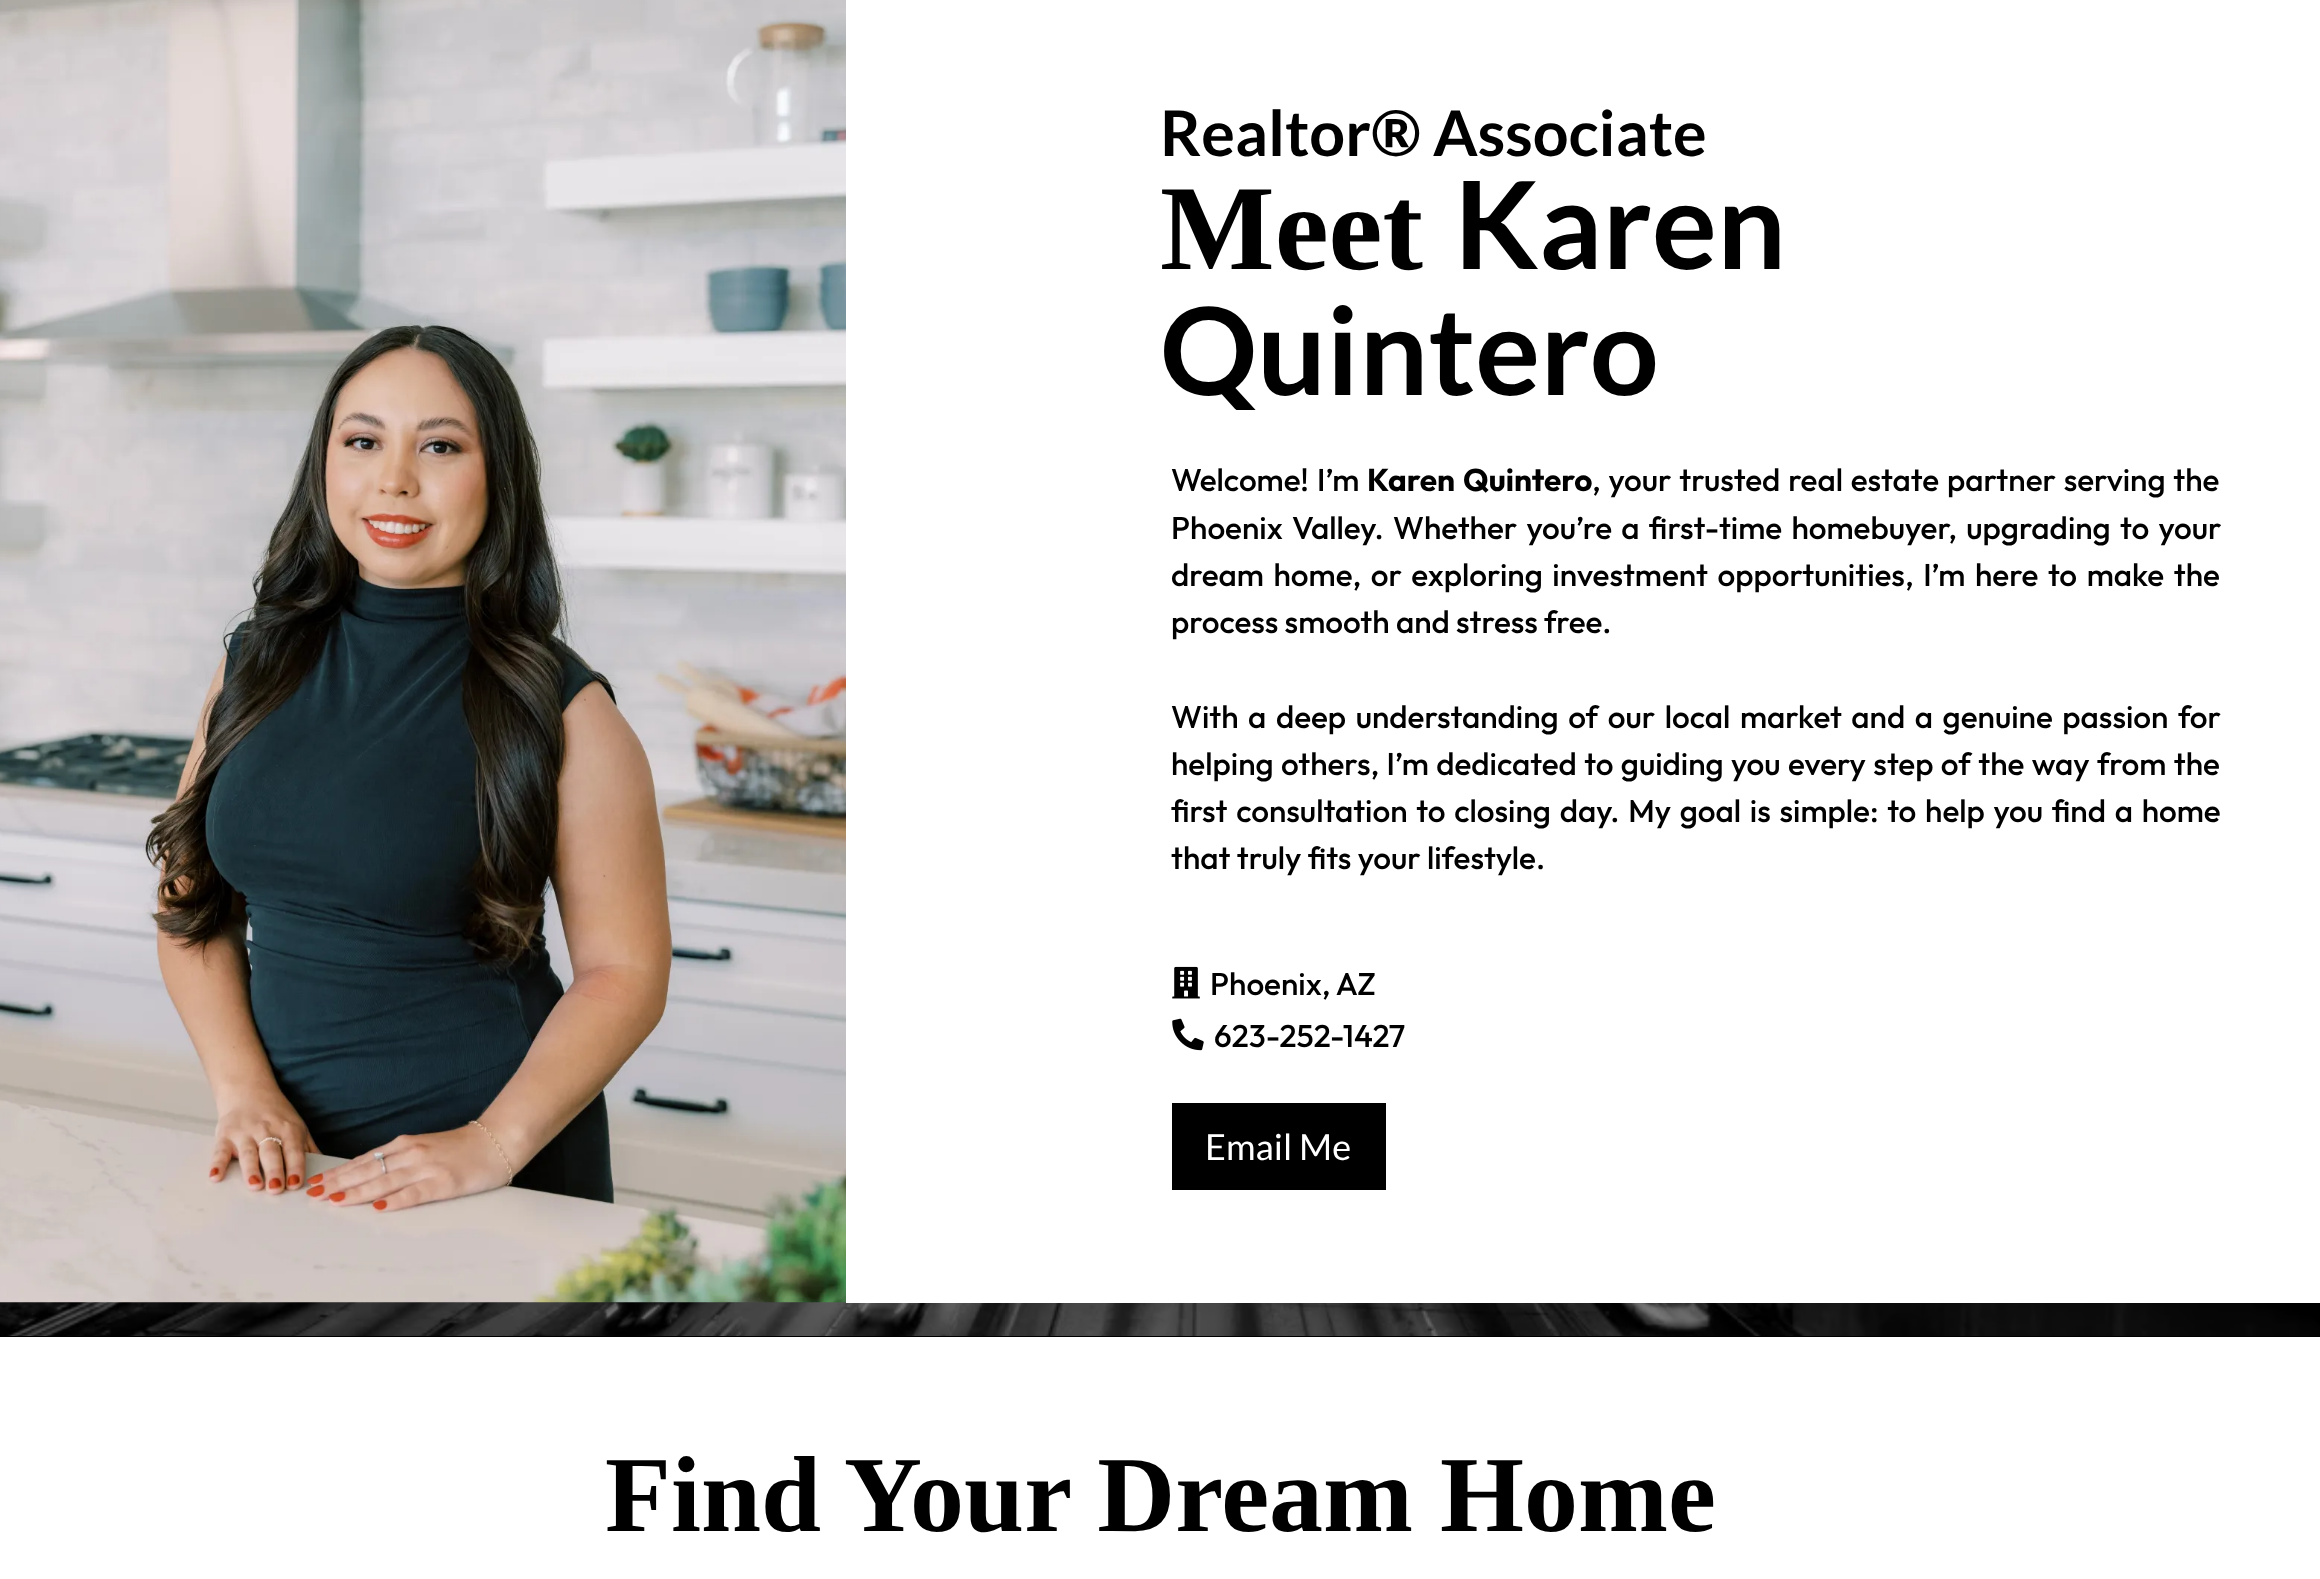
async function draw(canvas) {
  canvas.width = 2320
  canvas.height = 1579
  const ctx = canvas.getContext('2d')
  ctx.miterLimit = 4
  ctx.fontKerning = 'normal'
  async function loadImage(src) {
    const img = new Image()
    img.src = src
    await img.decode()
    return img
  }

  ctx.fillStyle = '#fff'
  ctx.fillRect(0, 0, 2320, 1579)
  ctx.fillStyle = '#000'
  ctx.fillRect(0, 1302, 2320, 35)
  ctx.drawImage(await loadImage('image3.png'), 0, 1302, 2320, 34)
  ctx.drawImage(await loadImage('image0.png'), 0, 0, 846, 1303)
  ctx.fillStyle = '#fff'
  ctx.fillRect(846, 1302, 1474, 1)
  ctx.font = 'bold 63px Lato'
  ctx.fillStyle = '#000'
  ctx.fillText('Realtor® Associate', 1160, 156)
  ctx.font = 'bold 121.5px Liberation Serif'
  ctx.fillText('Meet', 1160, 269)
  ctx.font = 'bold 121.5px Lato'
  ctx.fillText('Karen', 1454, 269)
  ctx.fillText('Quintero', 1160, 395)
  ctx.fillStyle = '#fff'
  ctx.fillRect(1236, 410, 22, 3)
  ctx.wordSpacing = '2px'
  ctx.font = '500 31.5px Outfit'
  ctx.fillStyle = '#000'
  ctx.fillText('Welcome! I’m', 1171, 491)
  ctx.font = 'bold 31.5px Outfit'
  ctx.fillText('Karen Quintero', 1367, 491)
  ctx.wordSpacing = '1.5px'
  ctx.font = '500 31.5px Outfit'
  ctx.fillText(', your trusted real estate partner serving the', 1592, 491)
  ctx.wordSpacing = '3px'
  ctx.fillText('Phoenix Valley. Whether you’re a first-time homebuyer, upgrading to your', 1171, 539)
  ctx.wordSpacing = '3.25px'
  ctx.fillText('dream home, or exploring investment opportunities, I’m here to make the', 1171, 586)
  ctx.wordSpacing = '0px'
  ctx.fillText('process smooth and stress free.', 1171, 633)
  ctx.wordSpacing = '3.25px'
  ctx.fillText('With a deep understanding of our local market and a genuine passion for', 1171, 728)
  ctx.wordSpacing = '1.1px'
  ctx.fillText('helping others, I’m dedicated to guiding you every step of the way from the', 1171, 775)
  ctx.wordSpacing = '2.4px'
  ctx.fillText('first consultation to closing day. My goal is simple: to help you find a home', 1171, 822)
  ctx.wordSpacing = '0px'
  ctx.fillText('that truly fits your lifestyle.', 1171, 869)
  ctx.drawImage(await loadImage('image1.png'), 1172, 966, 28, 33)
  ctx.fillText('Phoenix, AZ', 1210, 995)
  ctx.drawImage(await loadImage('image2.png'), 1172, 1018, 32, 33)
  ctx.fillText('623-252-1427', 1214, 1047)
  ctx.fillRect(1172, 1103, 214, 87)
  ctx.font = '36px Lato'
  ctx.fillStyle = '#fff'
  ctx.fillText('Email Me', 1205, 1160)
  ctx.font = 'bold 108px Liberation Serif'
  ctx.fillStyle = '#000'
  ctx.fillText('Find Your Dream Home', 605, 1531)
}

draw(document.querySelector('canvas'))
